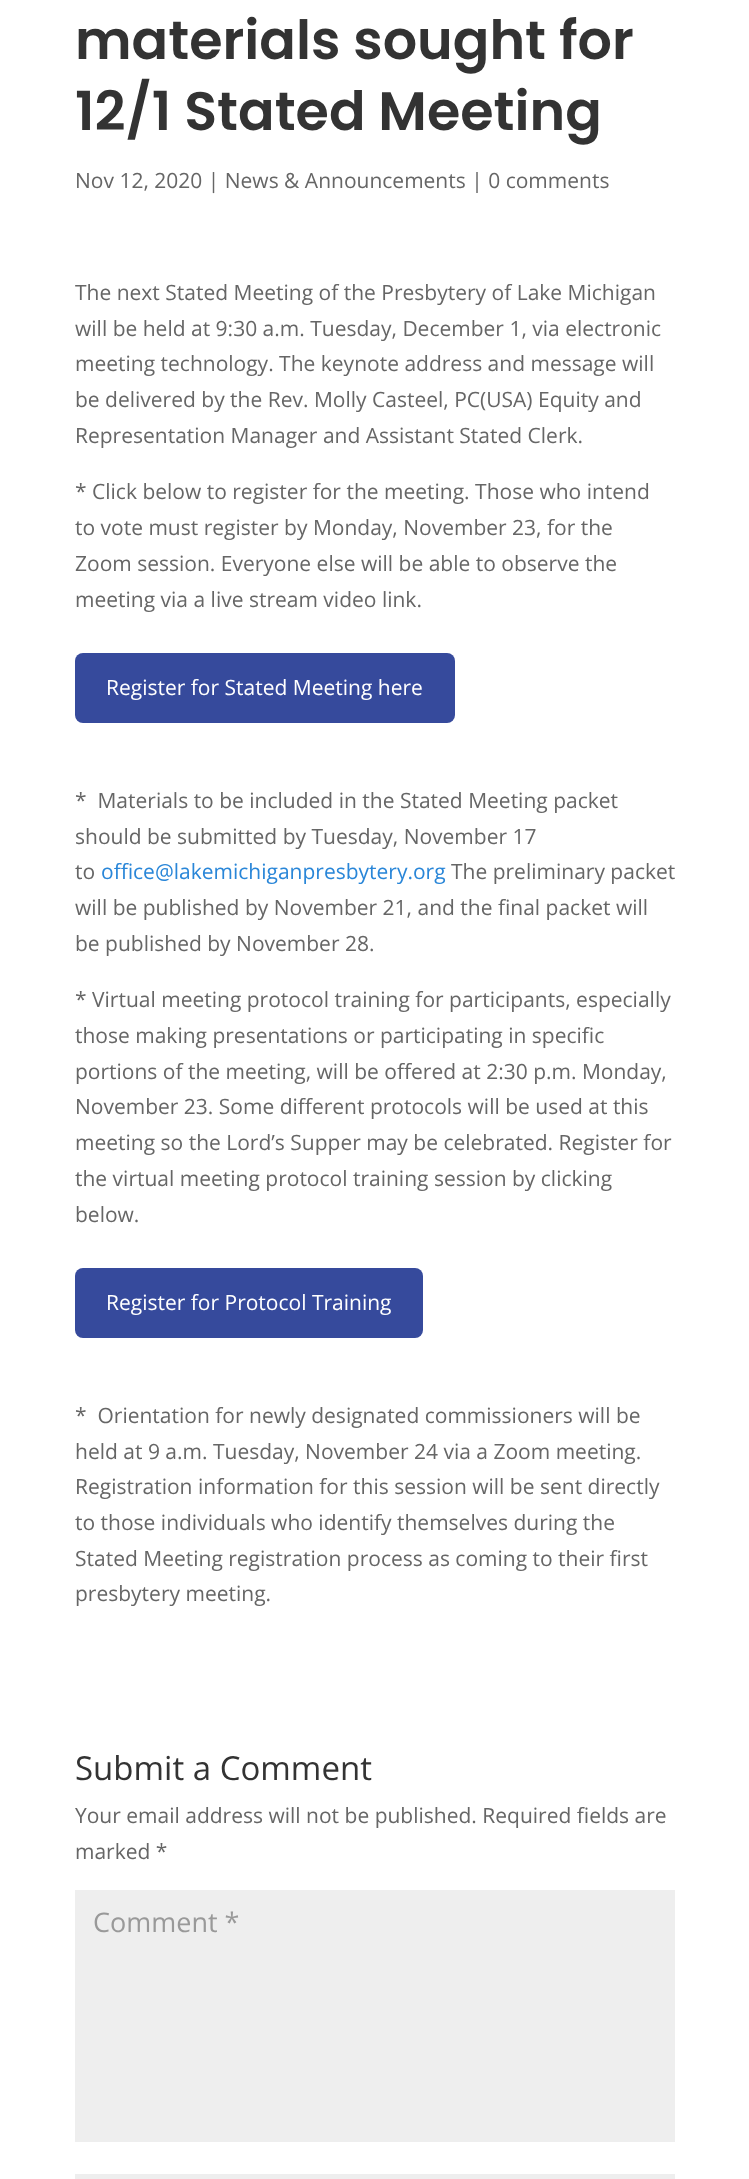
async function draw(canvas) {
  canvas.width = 749
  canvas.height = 2179
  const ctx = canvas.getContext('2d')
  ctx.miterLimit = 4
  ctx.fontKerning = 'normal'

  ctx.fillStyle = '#fff'
  ctx.fillRect(0, 0, 749, 2179)
  ctx.font = '600 54px Poppins'
  ctx.fillStyle = '#333'
  ctx.fillText('materials sought for', 75, 59)
  ctx.fillText('12/1 Stated Meeting', 75, 130)
  ctx.font = '21px Open Sans'
  ctx.fillStyle = '#666'
  ctx.fillText('Nov 12, 2020 | News & Announcements | 0 comments', 75, 188)
  ctx.fillText('The next Stated Meeting of the Presbytery of Lake Michigan', 75, 300)
  ctx.fillText('will be held at 9:30 a.m. Tuesday, December 1, via electronic', 75, 336)
  ctx.fillText('meeting technology. The keynote address and message will', 75, 371)
  ctx.fillText('be delivered by the Rev. Molly Casteel, PC(USA) Equity and', 75, 407)
  ctx.fillText('Representation Manager and Assistant Stated Clerk.', 75, 443)
  ctx.fillText('* Click below to register for the meeting. Those who intend', 75, 499)
  ctx.fillText('to vote must register by Monday, November 23, for the', 75, 535)
  ctx.fillText('Zoom session. Everyone else will be able to observe the', 75, 571)
  ctx.fillText('meeting via a live stream video link.', 75, 607)
  ctx.fillStyle = '#364a9c'
  ctx.beginPath()
  ctx.roundRect(75, 653, 380, 70, 8)
  ctx.fill()
  ctx.fillStyle = '#fff'
  ctx.fillText('Register for Stated Meeting here', 106, 695)
  ctx.fillStyle = '#666'
  ctx.fillText('*  Materials to be included in the Stated Meeting packet', 75, 808)
  ctx.fillText('should be submitted by Tuesday, November 17', 75, 844)
  ctx.fillText('to', 75, 879)
  ctx.fillStyle = '#2986d8'
  ctx.fillText('office@lakemichiganpresbytery.org', 101, 879)
  ctx.fillStyle = '#666'
  ctx.fillText('The preliminary packet', 451, 879)
  ctx.fillText('will be published by November 21, and the final packet will', 75, 915)
  ctx.fillText('be published by November 28.', 75, 951)
  ctx.fillText('* Virtual meeting protocol training for participants, especially', 75, 1007)
  ctx.fillText('those making presentations or participating in specific', 75, 1043)
  ctx.fillText('portions of the meeting, will be offered at 2:30 p.m. Monday,', 75, 1079)
  ctx.fillText('November 23. Some different protocols will be used at this', 75, 1114)
  ctx.fillText('meeting so the Lord’s Supper may be celebrated. Register for', 75, 1150)
  ctx.fillText('the virtual meeting protocol training session by clicking', 75, 1186)
  ctx.fillText('below.', 75, 1222)
  ctx.fillStyle = '#364a9c'
  ctx.beginPath()
  ctx.roundRect(75, 1268, 348, 70, 8)
  ctx.fill()
  ctx.fillStyle = '#fff'
  ctx.fillText('Register for Protocol Training', 106, 1310)
  ctx.fillStyle = '#666'
  ctx.fillText('*  Orientation for newly designated commissioners will be', 75, 1423)
  ctx.fillText('held at 9 a.m. Tuesday, November 24 via a Zoom meeting.', 75, 1459)
  ctx.fillText('Registration information for this session will be sent directly', 75, 1494)
  ctx.fillText('to those individuals who identify themselves during the', 75, 1530)
  ctx.fillText('Stated Meeting registration process as coming to their first', 75, 1566)
  ctx.fillText('presbytery meeting.', 75, 1601)
  ctx.font = '33px Open Sans'
  ctx.fillStyle = '#333'
  ctx.fillText('Submit a Comment', 75, 1780)
  ctx.font = '21px Open Sans'
  ctx.fillStyle = '#666'
  ctx.fillText('Your email address will not be published. Required fields are', 75, 1823)
  ctx.fillText('marked *', 75, 1859)
  ctx.fillStyle = '#eee'
  ctx.fillRect(75, 1890, 600, 252)
  ctx.font = '27px Open Sans'
  ctx.fillStyle = '#999'
  ctx.fillText('Comment *', 93, 1932)
  ctx.fillStyle = '#eee'
  ctx.fillRect(75, 2174, 600, 5)
}

draw(document.querySelector('canvas'))
